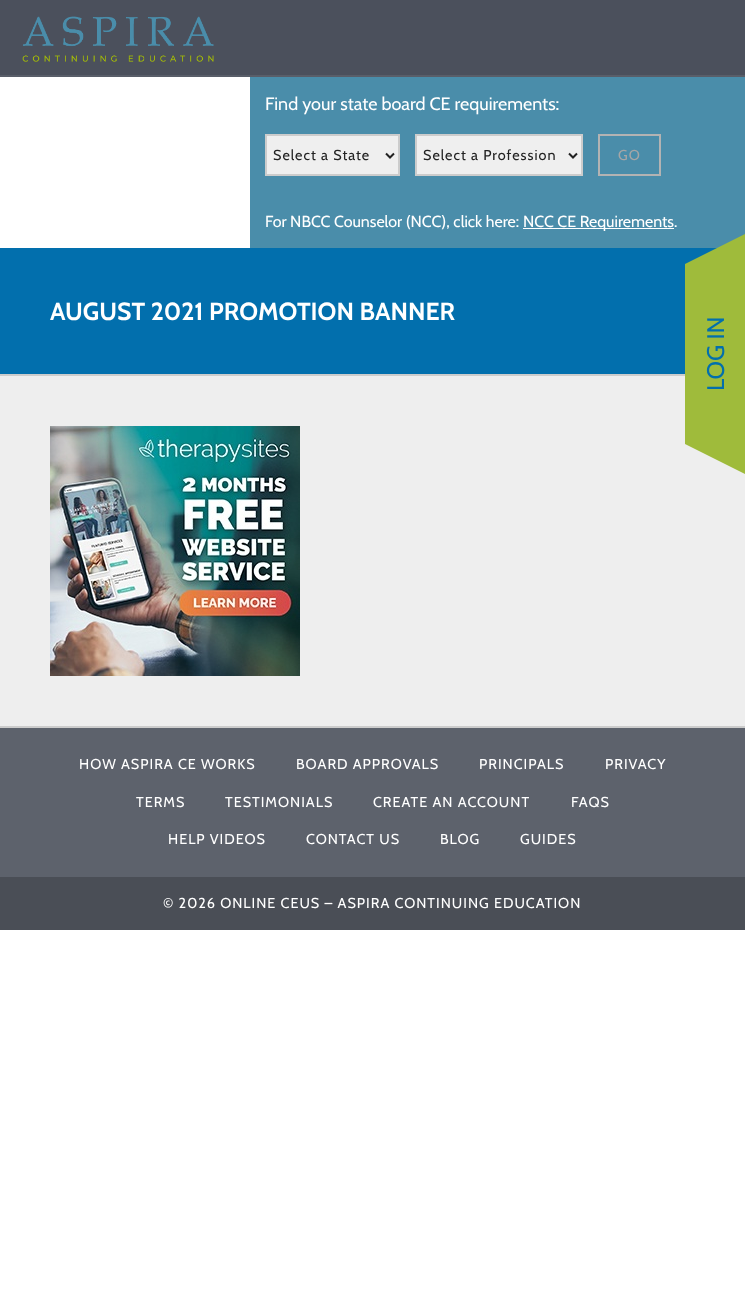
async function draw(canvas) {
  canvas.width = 745
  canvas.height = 1312
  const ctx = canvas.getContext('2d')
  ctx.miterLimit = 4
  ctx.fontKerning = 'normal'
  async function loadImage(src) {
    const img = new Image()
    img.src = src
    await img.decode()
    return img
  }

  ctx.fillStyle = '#fff'
  ctx.fillRect(0, 0, 745, 1312)
  ctx.fillStyle = '#4b505c'
  ctx.fillRect(0, 0, 745, 75)
  ctx.fillStyle = '#595e69'
  ctx.fillRect(0, 75, 745, 2)
  ctx.drawImage(await loadImage('image0.png'), 22, 16, 192, 46)
  ctx.fillStyle = '#4a8daa'
  ctx.fillRect(250, 77, 495, 171)
  ctx.font = '18px Cabin'
  ctx.fillStyle = '#fff'
  ctx.fillText('Find your state board CE requirements:', 265, 110)
  ctx.fillStyle = '#efefef'
  ctx.beginPath()
  ctx.rect(266, 135, 133, 40)
  ctx.fill()
  ctx.strokeStyle = '#ccc'
  ctx.lineWidth = 2
  ctx.stroke()
  ctx.beginPath()
  ctx.moveTo(386, 153.5)
  ctx.lineTo(390, 157.5)
  ctx.lineTo(394, 153.5)
  ctx.strokeStyle = '#222'
  ctx.stroke()
  ctx.letterSpacing = '1px'
  ctx.font = '14.4px Cabin'
  ctx.fillStyle = '#222'
  ctx.fillText('Select a State', 273, 160)
  ctx.fillStyle = '#efefef'
  ctx.beginPath()
  ctx.rect(416, 135, 166, 40)
  ctx.fill()
  ctx.strokeStyle = '#ccc'
  ctx.stroke()
  ctx.beginPath()
  ctx.moveTo(569, 153.5)
  ctx.lineTo(573, 157.5)
  ctx.lineTo(577, 153.5)
  ctx.strokeStyle = '#222'
  ctx.stroke()
  ctx.fillStyle = '#222'
  ctx.fillText('Select a Profession', 423, 160)
  ctx.strokeStyle = '#b3b3b3'
  ctx.strokeRect(599, 135, 61, 40)
  ctx.fillStyle = '#a6a6a6'
  ctx.fillText('GO', 618, 160)
  ctx.letterSpacing = '0px'
  ctx.font = '16px Cabin'
  ctx.fillStyle = '#fff'
  ctx.fillText('For NBCC Counselor (NCC), click here:', 265, 227)
  ctx.fillRect(523, 228, 151, 1)
  ctx.fillText('NCC CE Requirements.', 523, 227)
  ctx.fillStyle = '#026fad'
  ctx.fillRect(0, 248, 717, 126)
  ctx.font = 'bold 24.75px Cabin'
  ctx.fillStyle = '#fff'
  ctx.fillText('AUGUST 2021 PROMOTION BANNER', 50, 320)
  ctx.fillStyle = '#eee'
  ctx.fillRect(0, 376, 745, 350)
  ctx.fillStyle = '#ccc'
  ctx.fillRect(0, 374, 685, 2)
  ctx.fillRect(0, 726, 745, 2)
  ctx.drawImage(await loadImage('image1.png'), 50, 426, 250, 250)
  ctx.fillStyle = '#5d626c'
  ctx.fillRect(0, 728, 745, 149)
  ctx.letterSpacing = '1px'
  ctx.font = '14.4px Cabin'
  ctx.fillStyle = '#fff'
  ctx.fillText('HOW ASPIRA CE WORKS', 79, 769)
  ctx.fillText('BOARD APPROVALS', 296, 769)
  ctx.fillText('PRINCIPALS', 479, 769)
  ctx.fillText('PRIVACY', 605, 769)
  ctx.fillText('TERMS', 136, 807)
  ctx.fillText('TESTIMONIALS', 225, 807)
  ctx.fillText('CREATE AN ACCOUNT', 373, 807)
  ctx.fillText('FAQS', 571, 807)
  ctx.fillText('HELP VIDEOS', 168, 844)
  ctx.fillText('CONTACT US', 306, 844)
  ctx.fillText('BLOG', 440, 844)
  ctx.fillText('GUIDES', 520, 844)
  ctx.fillStyle = '#4a4e56'
  ctx.fillRect(0, 877, 745, 53)
  ctx.fillStyle = '#fff'
  ctx.fillText('© 2026 ONLINE CEUS – ASPIRA CONTINUING EDUCATION', 163, 908)
  ctx.fillStyle = '#9fbb3b'
  ctx.beginPath()
  ctx.moveTo(745, 234)
  ctx.lineTo(745, 474)
  ctx.lineTo(685, 444)
  ctx.lineTo(685, 264)
  ctx.closePath()
  ctx.fill()
  ctx.letterSpacing = '0px'
  ctx.font = '24px Cabin'
  ctx.fillStyle = '#026fad'
  ctx.save()
  ctx.translate(724, 391)
  ctx.rotate(-90 * Math.PI / 180)
  ctx.fillText('LOG IN', 0, 0)
  ctx.restore()
}

draw(document.querySelector('canvas'))
